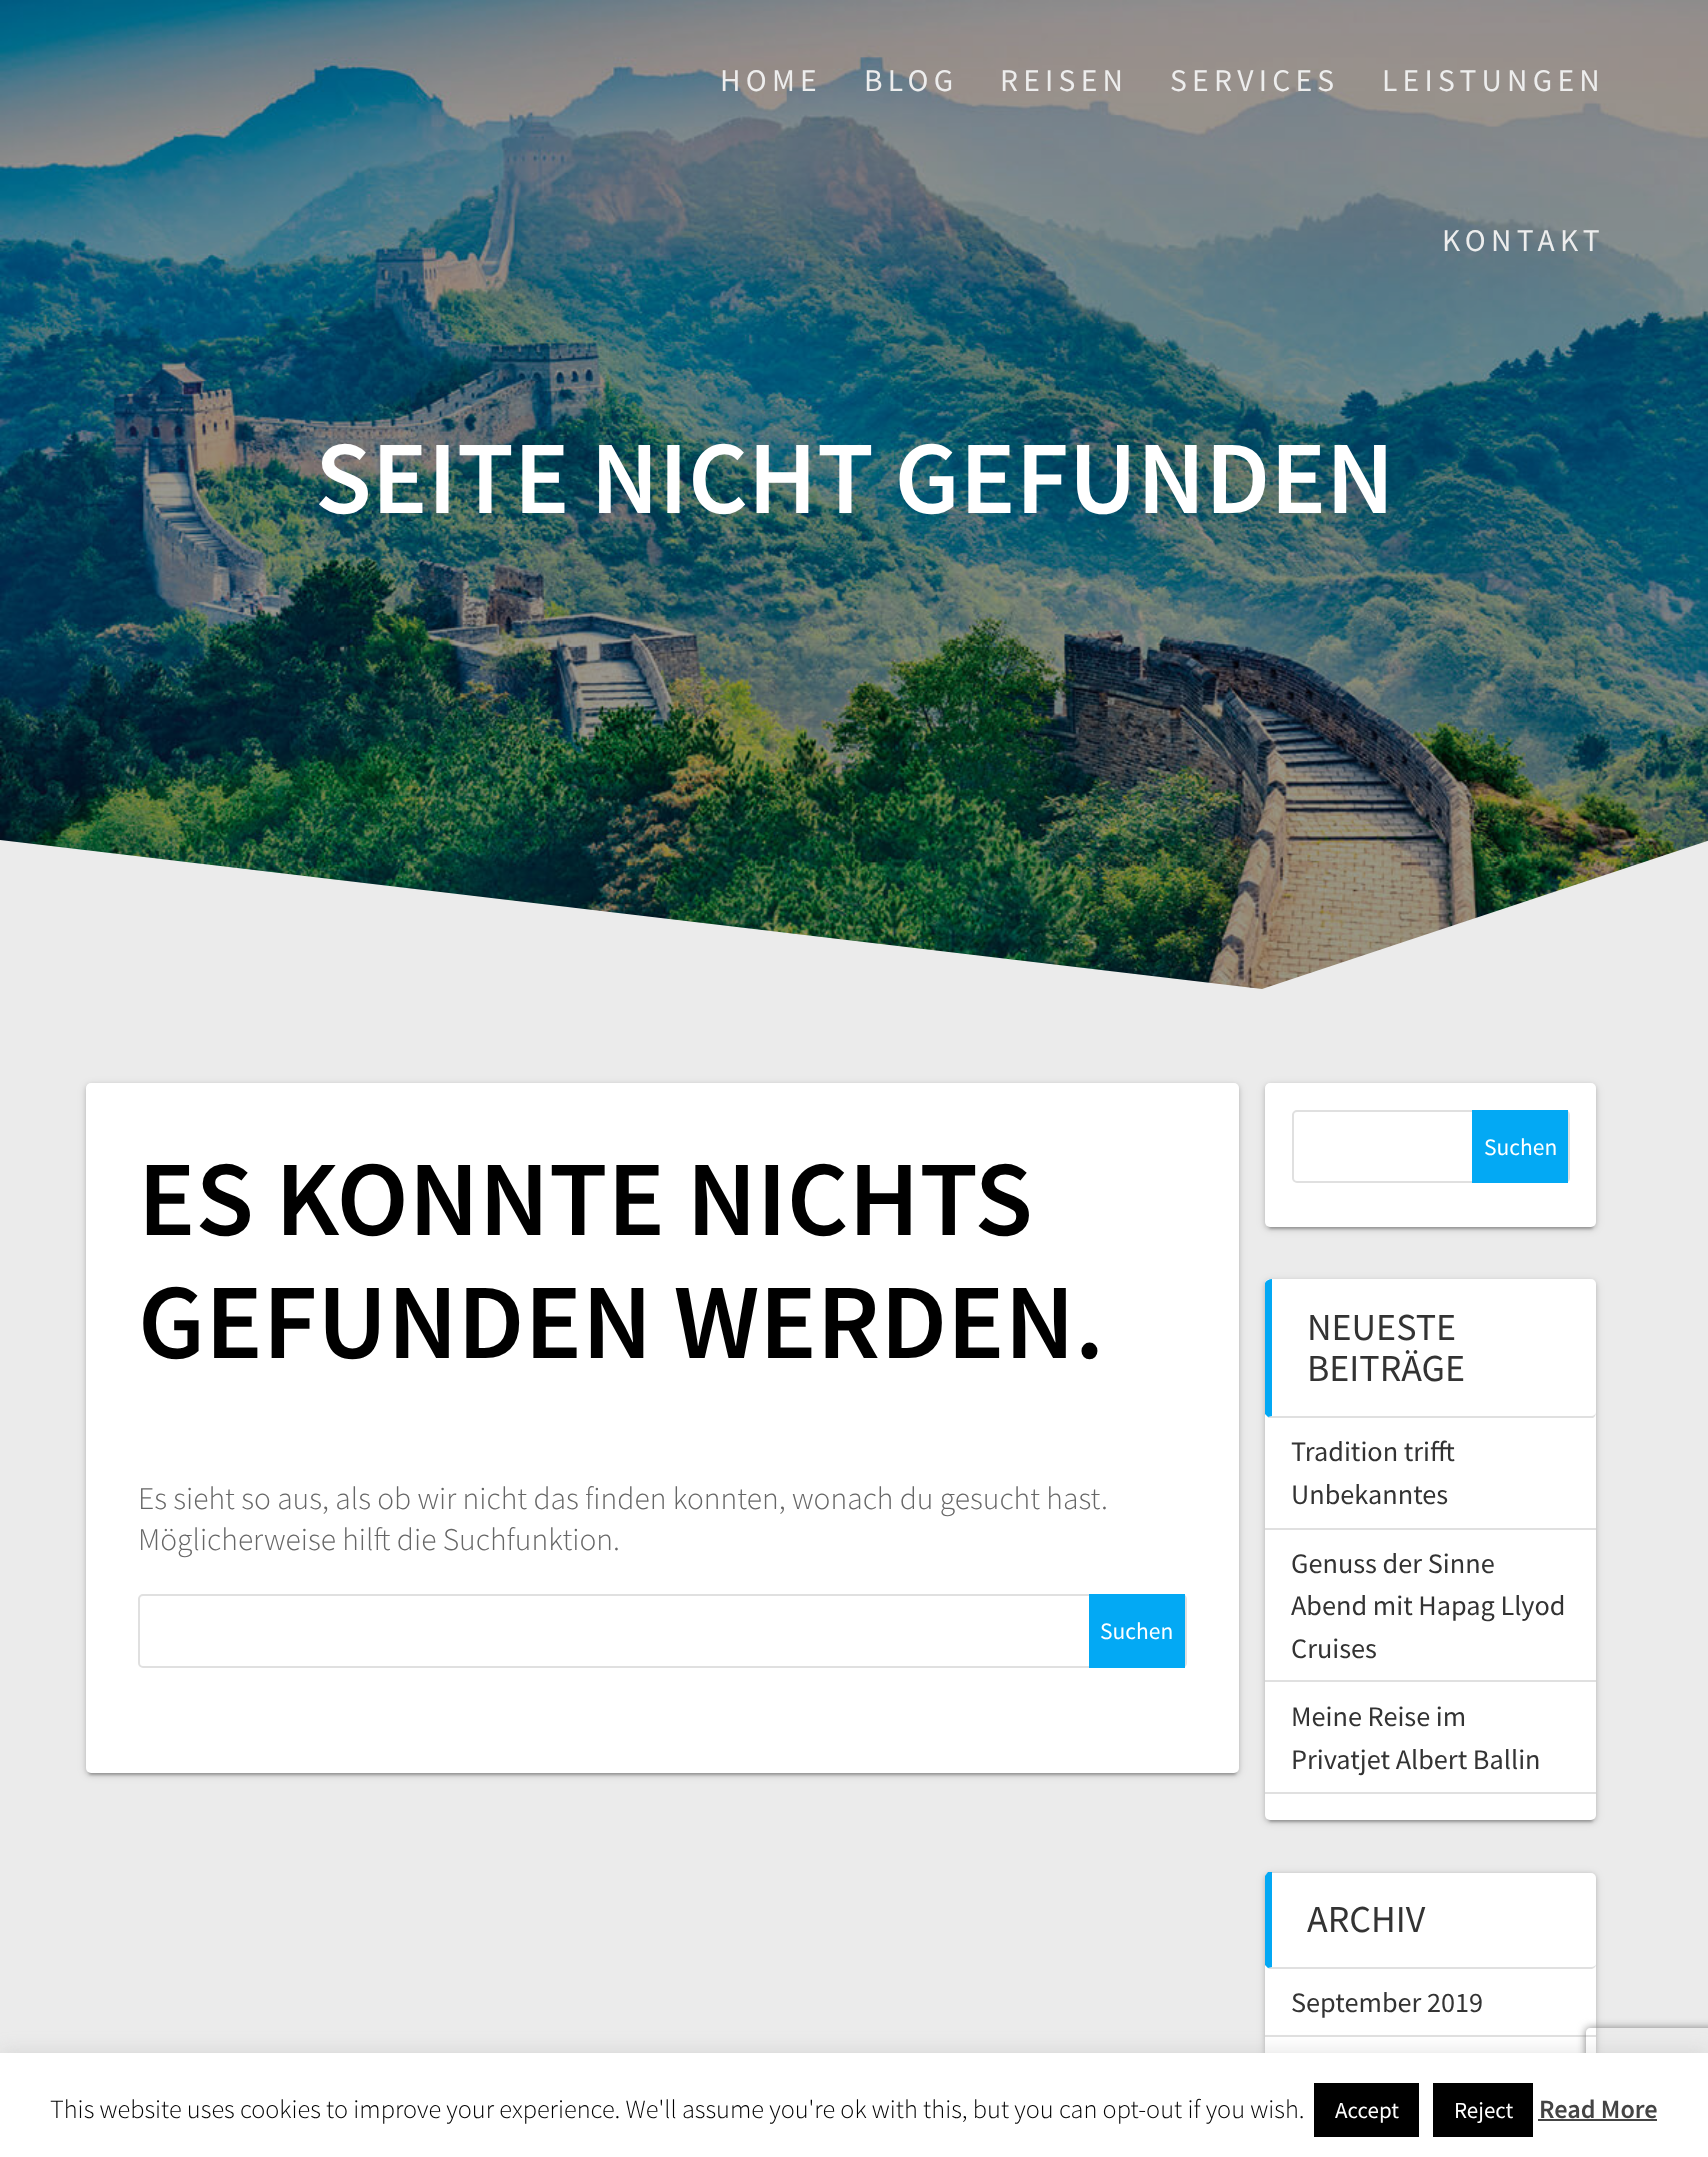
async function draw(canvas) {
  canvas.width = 1708
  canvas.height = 2157
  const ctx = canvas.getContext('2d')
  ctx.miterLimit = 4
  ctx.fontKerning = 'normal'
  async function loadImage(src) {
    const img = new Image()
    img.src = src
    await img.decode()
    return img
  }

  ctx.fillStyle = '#ebebeb'
  ctx.fillRect(0, 0, 1708, 2157)
  ctx.drawImage(await loadImage('image0.png'), 0, 0, 1708, 989)
  ctx.letterSpacing = '5.25px'
  ctx.font = '31.5px Source Sans Pro'
  ctx.fillStyle = '#ededed'
  ctx.fillText('HOME', 720, 91)
  ctx.fillText('BLOG', 864, 91)
  ctx.fillText('REISEN', 1000, 91)
  ctx.fillText('SERVICES', 1170, 91)
  ctx.fillText('LEISTUNGEN', 1382, 91)
  ctx.fillText('KONTAKT', 1442, 251)
  ctx.letterSpacing = '0px'
  ctx.font = '600 104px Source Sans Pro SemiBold'
  ctx.fillStyle = '#fff'
  ctx.fillText('SEITE NICHT GEFUNDEN', 315, 513)
  ctx.fillStyle = '#ebebeb'
  ctx.beginPath()
  ctx.moveTo(1262, 989)
  ctx.lineTo(0, 840)
  ctx.lineTo(0, 998)
  ctx.lineTo(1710, 998)
  ctx.lineTo(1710, 840)
  ctx.closePath()
  ctx.fill()
  ctx.fillStyle = '#0000001f'
  ctx.filter = 'blur(4.5px)'
  ctx.beginPath()
  ctx.roundRect(86, 1085, 1153, 690, 5)
  ctx.fill()
  ctx.filter = 'none'
  ctx.fillStyle = '#00000033'
  ctx.filter = 'blur(1px)'
  ctx.beginPath()
  ctx.roundRect(89, 1092, 1147, 683, 2)
  ctx.fill()
  ctx.filter = 'none'
  ctx.fillStyle = '#00000024'
  ctx.filter = 'blur(2px)'
  ctx.beginPath()
  ctx.roundRect(86, 1085, 1153, 690, 5)
  ctx.fill()
  ctx.filter = 'none'
  ctx.fillStyle = '#fff'
  ctx.beginPath()
  ctx.roundRect(86, 1083, 1153, 690, 5)
  ctx.fill()
  ctx.font = '600 107px Source Sans Pro SemiBold'
  ctx.fillStyle = '#000'
  ctx.fillText('ES KONNTE NICHTS', 138, 1235)
  ctx.fillText('GEFUNDEN WERDEN.', 138, 1358)
  ctx.font = '300 31.5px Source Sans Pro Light'
  ctx.fillStyle = '#666'
  ctx.fillText('Es sieht so aus, als ob wir nicht das finden konnten, wonach du gesucht hast.', 138, 1509)
  ctx.fillText('Möglicherweise hilft die Suchfunktion.', 138, 1550)
  ctx.beginPath()
  ctx.roundRect(139, 1595, 1047, 72, 4)
  ctx.strokeStyle = '#e0e0e0'
  ctx.lineWidth = 2
  ctx.stroke()
  ctx.fillStyle = '#03a9f4'
  ctx.fillRect(1089, 1594, 96, 74)
  ctx.font = '23.5px Source Sans Pro'
  ctx.fillStyle = '#fff'
  ctx.fillText('Suchen', 1100, 1639)
  ctx.fillStyle = '#0000001f'
  ctx.filter = 'blur(4.5px)'
  ctx.beginPath()
  ctx.roundRect(1265, 1085, 331, 144, 5)
  ctx.fill()
  ctx.filter = 'none'
  ctx.fillStyle = '#00000033'
  ctx.filter = 'blur(1px)'
  ctx.beginPath()
  ctx.roundRect(1269, 1092, 324, 137, 2)
  ctx.fill()
  ctx.filter = 'none'
  ctx.fillStyle = '#00000024'
  ctx.filter = 'blur(2px)'
  ctx.beginPath()
  ctx.roundRect(1265, 1085, 331, 144, 5)
  ctx.fill()
  ctx.filter = 'none'
  ctx.fillStyle = '#fff'
  ctx.beginPath()
  ctx.roundRect(1265, 1083, 331, 144, 5)
  ctx.fill()
  ctx.beginPath()
  ctx.roundRect(1293, 1111, 276, 71, 4)
  ctx.stroke()
  ctx.fillStyle = '#03a9f4'
  ctx.fillRect(1472, 1110, 96, 73)
  ctx.fillStyle = '#fff'
  ctx.fillText('Suchen', 1484, 1155)
  ctx.fillStyle = '#0000001f'
  ctx.filter = 'blur(4.5px)'
  ctx.beginPath()
  ctx.roundRect(1265, 1281, 331, 541, 5)
  ctx.fill()
  ctx.filter = 'none'
  ctx.fillStyle = '#00000033'
  ctx.filter = 'blur(1px)'
  ctx.beginPath()
  ctx.roundRect(1269, 1288, 324, 534, 2)
  ctx.fill()
  ctx.filter = 'none'
  ctx.fillStyle = '#00000024'
  ctx.filter = 'blur(2px)'
  ctx.beginPath()
  ctx.roundRect(1265, 1281, 331, 541, 5)
  ctx.fill()
  ctx.filter = 'none'
  ctx.fillStyle = '#fff'
  ctx.beginPath()
  ctx.roundRect(1265, 1279, 331, 541, 5)
  ctx.fill()
  ctx.fillStyle = '#e0e0e0'
  ctx.beginPath()
  ctx.moveTo(1268, 1418)
  ctx.lineTo(1268, 1417)
  ctx.lineTo(1272, 1416)
  ctx.lineTo(1591, 1416)
  ctx.bezierCurveTo(1594, 1416, 1596, 1414, 1596, 1412)
  ctx.bezierCurveTo(1596, 1414, 1595, 1417, 1593, 1418)
  ctx.closePath()
  ctx.fill()
  ctx.fillStyle = '#03a8f4'
  ctx.beginPath()
  ctx.moveTo(1265, 1283)
  ctx.bezierCurveTo(1267, 1280, 1269, 1279, 1272, 1279)
  ctx.lineTo(1272, 1416)
  ctx.lineTo(1268, 1417)
  ctx.lineTo(1265, 1414)
  ctx.closePath()
  ctx.fill()
  ctx.font = '38px Source Sans Pro'
  ctx.fillStyle = '#333'
  ctx.fillText('NEUESTE', 1307, 1340)
  ctx.fillText('BEITRÄGE', 1307, 1381)
  ctx.fillStyle = '#e0e0e0'
  ctx.fillRect(1265, 1528, 331, 2)
  ctx.font = '28.25px Source Sans Pro'
  ctx.fillStyle = '#333'
  ctx.fillText('Tradition trifft', 1291, 1461)
  ctx.fillText('Unbekanntes', 1291, 1504)
  ctx.fillStyle = '#e0e0e0'
  ctx.fillRect(1265, 1680, 331, 2)
  ctx.fillStyle = '#333'
  ctx.fillText('Genuss der Sinne', 1291, 1573)
  ctx.fillText('Abend mit Hapag Llyod', 1291, 1615)
  ctx.fillText('Cruises', 1291, 1658)
  ctx.fillStyle = '#e0e0e0'
  ctx.fillRect(1265, 1792, 331, 2)
  ctx.fillStyle = '#333'
  ctx.fillText('Meine Reise im', 1291, 1726)
  ctx.fillText('Privatjet Albert Ballin', 1291, 1769)
  ctx.fillStyle = '#0000001f'
  ctx.filter = 'blur(4.5px)'
  ctx.beginPath()
  ctx.roundRect(1265, 1874, 331, 259, 5)
  ctx.fill()
  ctx.filter = 'none'
  ctx.fillStyle = '#00000024'
  ctx.filter = 'blur(2px)'
  ctx.beginPath()
  ctx.roundRect(1265, 1874, 331, 259, 5)
  ctx.fill()
  ctx.filter = 'none'
  ctx.fillStyle = '#fff'
  ctx.beginPath()
  ctx.roundRect(1265, 1873, 331, 259, 5)
  ctx.fill()
  ctx.fillStyle = '#e0e0e0'
  ctx.beginPath()
  ctx.moveTo(1269, 1969)
  ctx.lineTo(1268, 1968)
  ctx.lineTo(1272, 1967)
  ctx.lineTo(1591, 1967)
  ctx.bezierCurveTo(1594, 1967, 1596, 1965, 1596, 1964)
  ctx.bezierCurveTo(1596, 1966, 1595, 1968, 1592, 1969)
  ctx.closePath()
  ctx.fill()
  ctx.fillStyle = '#03a8f4'
  ctx.beginPath()
  ctx.moveTo(1265, 1876)
  ctx.bezierCurveTo(1266, 1875, 1267, 1873, 1268, 1872)
  ctx.lineTo(1272, 1872)
  ctx.lineTo(1272, 1967)
  ctx.lineTo(1268, 1968)
  ctx.lineTo(1265, 1965)
  ctx.closePath()
  ctx.fill()
  ctx.font = '38px Source Sans Pro'
  ctx.fillStyle = '#333'
  ctx.fillText('ARCHIV', 1307, 1932)
  ctx.fillStyle = '#e0e0e0'
  ctx.fillRect(1265, 2035, 331, 2)
  ctx.font = '28.25px Source Sans Pro'
  ctx.fillStyle = '#333'
  ctx.fillText('September 2019', 1291, 2012)
  ctx.fillStyle = '#acabab4d'
  ctx.filter = 'blur(9px)'
  ctx.beginPath()
  ctx.rect(0, 2051, 1708, 105)
  ctx.fill()
  ctx.filter = 'none'
  ctx.save()
  ctx.beginPath()
  ctx.moveTo(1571, 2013)
  ctx.lineTo(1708, 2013)
  ctx.lineTo(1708, 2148)
  ctx.lineTo(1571, 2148)
  ctx.closePath()
  ctx.moveTo(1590, 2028)
  ctx.lineTo(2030, 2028)
  ctx.bezierCurveTo(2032, 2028, 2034, 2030, 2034, 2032)
  ctx.lineTo(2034, 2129)
  ctx.bezierCurveTo(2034, 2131, 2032, 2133, 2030, 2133)
  ctx.lineTo(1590, 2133)
  ctx.bezierCurveTo(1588, 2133, 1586, 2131, 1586, 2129)
  ctx.lineTo(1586, 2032)
  ctx.bezierCurveTo(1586, 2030, 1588, 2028, 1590, 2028)
  ctx.closePath()
  ctx.clip('evenodd')
  ctx.fillStyle = '#808080'
  ctx.filter = 'blur(4.5px)'
  ctx.beginPath()
  ctx.roundRect(1586, 2028, 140, 105, 4)
  ctx.fill()
  ctx.filter = 'none'
  ctx.restore()
  ctx.fillStyle = '#fff'
  ctx.fillRect(0, 2053, 1708, 104)
  ctx.font = '300 26.25px Source Sans Pro Light'
  ctx.fillStyle = '#000'
  ctx.fillText('This website uses cookies to improve your experience. We\'ll assume you\'re ok with this, but you can opt-out if you wish.', 50, 2118)
  ctx.fillRect(1314, 2083, 105, 54)
  ctx.font = '23px Source Sans Pro'
  ctx.fillStyle = '#fff'
  ctx.fillText('Accept', 1335, 2118)
  ctx.fillStyle = '#000'
  ctx.fillRect(1433, 2083, 100, 54)
  ctx.fillStyle = '#fff'
  ctx.fillText('Reject', 1454, 2118)
  ctx.font = '600 26.25px Source Sans Pro SemiBold'
  ctx.fillStyle = '#444'
  ctx.fillText('Read More', 1539, 2118)
  ctx.fillRect(1538, 2119, 119, 2)
}

draw(document.querySelector('canvas'))
